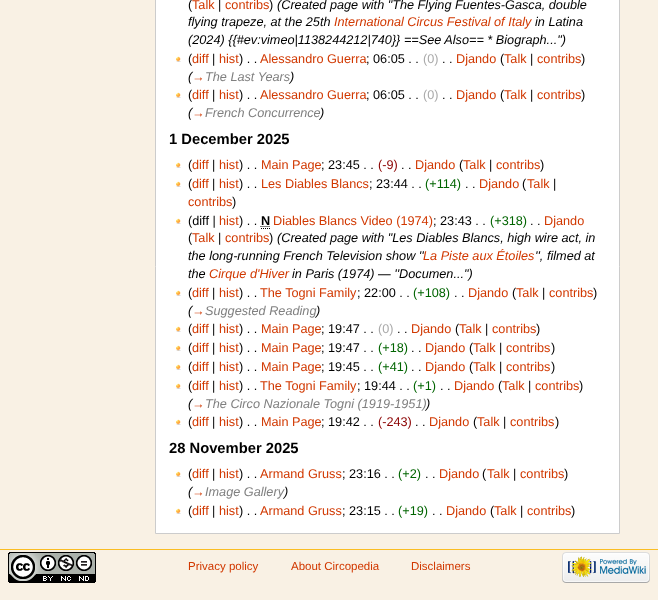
async function draw(canvas) {
  canvas.width = 658
  canvas.height = 600
  const ctx = canvas.getContext('2d')
  ctx.miterLimit = 4
  ctx.fontKerning = 'normal'
  async function loadImage(src) {
    const img = new Image()
    img.src = src
    await img.decode()
    return img
  }

  ctx.fillStyle = '#f9f1e4'
  ctx.fillRect(0, 0, 658, 600)
  ctx.fillStyle = '#fff'
  ctx.beginPath()
  ctx.rect(155.5, -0.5, 464, 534)
  ctx.fill()
  ctx.strokeStyle = '#ccc'
  ctx.stroke()
  ctx.font = '12.7px Liberation Sans'
  ctx.fillStyle = '#000'
  ctx.fillText('(', 188, 9)
  ctx.fillStyle = '#d13800'
  ctx.fillText('Talk', 192, 9)
  ctx.fillStyle = '#000'
  ctx.fillText('|', 218, 9)
  ctx.fillStyle = '#d13800'
  ctx.fillText('contribs', 225, 9)
  ctx.fillStyle = '#000'
  ctx.fillText(')', 269, 9)
  ctx.font = 'italic 12.7px Liberation Sans'
  ctx.fillText('(Created page with "The Flying Fuentes-Gasca, double', 277, 9)
  ctx.fillText('flying trapeze, at the 25th', 188, 26)
  ctx.fillStyle = '#d13800'
  ctx.fillText('International Circus Festival of Italy', 334, 26)
  ctx.fillStyle = '#000'
  ctx.fillText('in Latina', 535, 26)
  ctx.fillText('(2024) {{#ev:vimeo|1138244212|740}} ==See Also== * Biograph...")', 188, 44)
  ctx.drawImage(await loadImage('image0.png'), 176, 56, 5, 6)
  ctx.font = '12.7px Liberation Sans'
  ctx.fillText('(', 188, 63)
  ctx.fillStyle = '#d13800'
  ctx.fillText('diff', 192, 63)
  ctx.fillStyle = '#000'
  ctx.fillText('|', 212, 63)
  ctx.fillStyle = '#d13800'
  ctx.fillText('hist', 219, 63)
  ctx.fillStyle = '#000'
  ctx.fillText(') . .', 239, 63)
  ctx.fillStyle = '#d13800'
  ctx.fillText('Alessandro Guerra', 260, 63)
  ctx.fillStyle = '#000'
  ctx.fillText('; 06:05 . .', 366, 63)
  ctx.fillStyle = '#aaa'
  ctx.fillText('(0)', 423, 63)
  ctx.fillStyle = '#000'
  ctx.fillText('. .', 442, 63)
  ctx.fillStyle = '#d13800'
  ctx.fillText('Djando', 456, 63)
  ctx.fillStyle = '#000'
  ctx.fillText('(', 500, 63)
  ctx.fillStyle = '#d13800'
  ctx.fillText('Talk', 504, 63)
  ctx.fillStyle = '#000'
  ctx.fillText('|', 530, 63)
  ctx.fillStyle = '#d13800'
  ctx.fillText('contribs', 537, 63)
  ctx.fillStyle = '#000'
  ctx.fillText(')', 581, 63)
  ctx.font = 'italic 12.7px Liberation Sans'
  ctx.fillText('(', 188, 81)
  ctx.fillStyle = '#d13800'
  ctx.fillText('→', 192, 81)
  ctx.fillStyle = '#808080'
  ctx.fillText('The Last Years', 205, 81)
  ctx.fillStyle = '#000'
  ctx.fillText(')', 290, 81)
  ctx.drawImage(await loadImage('image0.png'), 176, 92, 5, 6)
  ctx.font = '12.7px Liberation Sans'
  ctx.fillText('(', 188, 99)
  ctx.fillStyle = '#d13800'
  ctx.fillText('diff', 192, 99)
  ctx.fillStyle = '#000'
  ctx.fillText('|', 212, 99)
  ctx.fillStyle = '#d13800'
  ctx.fillText('hist', 219, 99)
  ctx.fillStyle = '#000'
  ctx.fillText(') . .', 239, 99)
  ctx.fillStyle = '#d13800'
  ctx.fillText('Alessandro Guerra', 260, 99)
  ctx.fillStyle = '#000'
  ctx.fillText('; 06:05 . .', 366, 99)
  ctx.fillStyle = '#aaa'
  ctx.fillText('(0)', 423, 99)
  ctx.fillStyle = '#000'
  ctx.fillText('. .', 442, 99)
  ctx.fillStyle = '#d13800'
  ctx.fillText('Djando', 456, 99)
  ctx.fillStyle = '#000'
  ctx.fillText('(', 500, 99)
  ctx.fillStyle = '#d13800'
  ctx.fillText('Talk', 504, 99)
  ctx.fillStyle = '#000'
  ctx.fillText('|', 530, 99)
  ctx.fillStyle = '#d13800'
  ctx.fillText('contribs', 537, 99)
  ctx.fillStyle = '#000'
  ctx.fillText(')', 581, 99)
  ctx.font = 'italic 12.7px Liberation Sans'
  ctx.fillText('(', 188, 117)
  ctx.fillStyle = '#d13800'
  ctx.fillText('→', 192, 117)
  ctx.fillStyle = '#808080'
  ctx.fillText('French Concurrence', 205, 117)
  ctx.fillStyle = '#000'
  ctx.fillText(')', 320, 117)
  ctx.font = 'bold 14.75px Liberation Sans'
  ctx.fillText('1 December 2025', 169, 144)
  ctx.drawImage(await loadImage('image0.png'), 176, 162, 5, 6)
  ctx.font = '12.7px Liberation Sans'
  ctx.fillText('(', 188, 169)
  ctx.fillStyle = '#d13800'
  ctx.fillText('diff', 192, 169)
  ctx.fillStyle = '#000'
  ctx.fillText('|', 212, 169)
  ctx.fillStyle = '#d13800'
  ctx.fillText('hist', 219, 169)
  ctx.fillStyle = '#000'
  ctx.fillText(') . .', 239, 169)
  ctx.fillStyle = '#d13800'
  ctx.fillText('Main Page', 261, 169)
  ctx.fillStyle = '#000'
  ctx.fillText('; 23:45 . .', 321, 169)
  ctx.fillStyle = '#8b0000'
  ctx.fillText('(-9)', 378, 169)
  ctx.fillStyle = '#000'
  ctx.fillText('. .', 401, 169)
  ctx.fillStyle = '#d13800'
  ctx.fillText('Djando', 415, 169)
  ctx.fillStyle = '#000'
  ctx.fillText('(', 459, 169)
  ctx.fillStyle = '#d13800'
  ctx.fillText('Talk', 463, 169)
  ctx.fillStyle = '#000'
  ctx.fillText('|', 489, 169)
  ctx.fillStyle = '#d13800'
  ctx.fillText('contribs', 496, 169)
  ctx.fillStyle = '#000'
  ctx.fillText(')', 540, 169)
  ctx.drawImage(await loadImage('image0.png'), 176, 181, 5, 6)
  ctx.fillText('(', 188, 188)
  ctx.fillStyle = '#d13800'
  ctx.fillText('diff', 192, 188)
  ctx.fillStyle = '#000'
  ctx.fillText('|', 212, 188)
  ctx.fillStyle = '#d13800'
  ctx.fillText('hist', 219, 188)
  ctx.fillStyle = '#000'
  ctx.fillText(') . .', 239, 188)
  ctx.fillStyle = '#d13800'
  ctx.fillText('Les Diables Blancs', 261, 188)
  ctx.fillStyle = '#000'
  ctx.fillText('; 23:44 . .', 369, 188)
  ctx.fillStyle = '#006400'
  ctx.fillText('(+114)', 425, 188)
  ctx.fillStyle = '#000'
  ctx.fillText('. .', 465, 188)
  ctx.fillStyle = '#d13800'
  ctx.fillText('Djando', 479, 188)
  ctx.fillStyle = '#000'
  ctx.fillText('(', 522, 188)
  ctx.fillStyle = '#d13800'
  ctx.fillText('Talk', 527, 188)
  ctx.fillStyle = '#000'
  ctx.fillText('|', 553, 188)
  ctx.fillStyle = '#d13800'
  ctx.fillText('contribs', 188, 206)
  ctx.fillStyle = '#000'
  ctx.fillText(')', 232, 206)
  ctx.drawImage(await loadImage('image0.png'), 176, 218, 5, 6)
  ctx.fillText('(diff |', 188, 225)
  ctx.fillStyle = '#d13800'
  ctx.fillText('hist', 219, 225)
  ctx.fillStyle = '#000'
  ctx.fillText(') . .', 239, 225)
  ctx.font = 'bold 12.7px Liberation Sans'
  ctx.fillText('N', 261, 225)
  ctx.beginPath()
  ctx.moveTo(261, 228.5)
  ctx.lineTo(270, 228.5)
  ctx.moveTo(260.5, 226.5)
  ctx.lineTo(270, 226.5)
  ctx.strokeStyle = '#000'
  ctx.setLineDash([1, 1])
  ctx.stroke()
  ctx.font = '12.7px Liberation Sans'
  ctx.fillStyle = '#d13800'
  ctx.fillText('Diables Blancs Video (1974)', 273, 225)
  ctx.fillStyle = '#000'
  ctx.fillText('; 23:43 . .', 433, 225)
  ctx.fillStyle = '#006400'
  ctx.fillText('(+318)', 490, 225)
  ctx.fillStyle = '#000'
  ctx.fillText('. .', 530, 225)
  ctx.fillStyle = '#d13800'
  ctx.fillText('Djando', 544, 225)
  ctx.fillStyle = '#000'
  ctx.fillText('(', 188, 242)
  ctx.fillStyle = '#d13800'
  ctx.fillText('Talk', 192, 242)
  ctx.fillStyle = '#000'
  ctx.fillText('|', 218, 242)
  ctx.fillStyle = '#d13800'
  ctx.fillText('contribs', 225, 242)
  ctx.fillStyle = '#000'
  ctx.fillText(')', 269, 242)
  ctx.font = 'italic 12.7px Liberation Sans'
  ctx.fillText('(Created page with "Les Diables Blancs, high wire act, in', 277, 242)
  ctx.fillText('the long-running French Television show \'\'', 188, 260)
  ctx.fillStyle = '#d13800'
  ctx.fillText('La Piste aux Étoiles', 423, 260)
  ctx.fillStyle = '#000'
  ctx.fillText('\'\', filmed at', 535, 260)
  ctx.fillText('the', 188, 278)
  ctx.fillStyle = '#d13800'
  ctx.fillText('Cirque d\'Hiver', 209, 278)
  ctx.fillStyle = '#000'
  ctx.fillText('in Paris (1974) — \'\'Documen...")', 292, 278)
  ctx.drawImage(await loadImage('image0.png'), 176, 290, 5, 6)
  ctx.font = '12.7px Liberation Sans'
  ctx.fillText('(', 188, 297)
  ctx.fillStyle = '#d13800'
  ctx.fillText('diff', 192, 297)
  ctx.fillStyle = '#000'
  ctx.fillText('|', 212, 297)
  ctx.fillStyle = '#d13800'
  ctx.fillText('hist', 219, 297)
  ctx.fillStyle = '#000'
  ctx.fillText(') . .', 239, 297)
  ctx.fillStyle = '#d13800'
  ctx.fillText('The Togni Family', 260, 297)
  ctx.fillStyle = '#000'
  ctx.fillText('; 22:00 . .', 357, 297)
  ctx.fillStyle = '#006400'
  ctx.fillText('(+108)', 413, 297)
  ctx.fillStyle = '#000'
  ctx.fillText('. .', 454, 297)
  ctx.fillStyle = '#d13800'
  ctx.fillText('Djando', 468, 297)
  ctx.fillStyle = '#000'
  ctx.fillText('(', 512, 297)
  ctx.fillStyle = '#d13800'
  ctx.fillText('Talk', 516, 297)
  ctx.fillStyle = '#000'
  ctx.fillText('|', 542, 297)
  ctx.fillStyle = '#d13800'
  ctx.fillText('contribs', 549, 297)
  ctx.fillStyle = '#000'
  ctx.fillText(')', 593, 297)
  ctx.font = 'italic 12.7px Liberation Sans'
  ctx.fillText('(', 188, 315)
  ctx.fillStyle = '#808080'
  ctx.fillText('Suggested Reading', 205, 315)
  ctx.fillStyle = '#d13800'
  ctx.fillText('→', 192, 315)
  ctx.fillStyle = '#000'
  ctx.fillText(')', 316, 315)
  ctx.drawImage(await loadImage('image0.png'), 176, 326, 5, 6)
  ctx.font = '12.7px Liberation Sans'
  ctx.fillText('(', 188, 333)
  ctx.fillStyle = '#d13800'
  ctx.fillText('diff', 192, 333)
  ctx.fillStyle = '#000'
  ctx.fillText('|', 212, 333)
  ctx.fillStyle = '#d13800'
  ctx.fillText('hist', 219, 333)
  ctx.fillStyle = '#000'
  ctx.fillText(') . .', 239, 333)
  ctx.fillStyle = '#d13800'
  ctx.fillText('Main Page', 261, 333)
  ctx.fillStyle = '#000'
  ctx.fillText('; 19:47 . .', 321, 333)
  ctx.fillStyle = '#aaa'
  ctx.fillText('(0)', 378, 333)
  ctx.fillStyle = '#000'
  ctx.fillText('. .', 397, 333)
  ctx.fillStyle = '#d13800'
  ctx.fillText('Djando', 411, 333)
  ctx.fillStyle = '#000'
  ctx.fillText('(', 455, 333)
  ctx.fillStyle = '#d13800'
  ctx.fillText('Talk', 459, 333)
  ctx.fillStyle = '#000'
  ctx.fillText('|', 485, 333)
  ctx.fillStyle = '#d13800'
  ctx.fillText('contribs', 492, 333)
  ctx.fillStyle = '#000'
  ctx.fillText(')', 536, 333)
  ctx.drawImage(await loadImage('image0.png'), 176, 345, 5, 6)
  ctx.fillText('(', 188, 352)
  ctx.fillStyle = '#d13800'
  ctx.fillText('diff', 192, 352)
  ctx.fillStyle = '#000'
  ctx.fillText('|', 212, 352)
  ctx.fillStyle = '#d13800'
  ctx.fillText('hist', 219, 352)
  ctx.fillStyle = '#000'
  ctx.fillText(') . .', 239, 352)
  ctx.fillStyle = '#d13800'
  ctx.fillText('Main Page', 261, 352)
  ctx.fillStyle = '#000'
  ctx.fillText('; 19:47 . .', 321, 352)
  ctx.fillStyle = '#006400'
  ctx.fillText('(+18)', 378, 352)
  ctx.fillStyle = '#000'
  ctx.fillText('. .', 411, 352)
  ctx.fillStyle = '#d13800'
  ctx.fillText('Djando', 425, 352)
  ctx.fillStyle = '#000'
  ctx.fillText('(', 469, 352)
  ctx.fillStyle = '#d13800'
  ctx.fillText('Talk', 473, 352)
  ctx.fillStyle = '#000'
  ctx.fillText('|', 499, 352)
  ctx.fillStyle = '#d13800'
  ctx.fillText('contribs', 506, 352)
  ctx.fillStyle = '#000'
  ctx.fillText(')', 551, 352)
  ctx.drawImage(await loadImage('image0.png'), 176, 364, 5, 6)
  ctx.fillText('(', 188, 371)
  ctx.fillStyle = '#d13800'
  ctx.fillText('diff', 192, 371)
  ctx.fillStyle = '#000'
  ctx.fillText('|', 212, 371)
  ctx.fillStyle = '#d13800'
  ctx.fillText('hist', 219, 371)
  ctx.fillStyle = '#000'
  ctx.fillText(') . .', 239, 371)
  ctx.fillStyle = '#d13800'
  ctx.fillText('Main Page', 261, 371)
  ctx.fillStyle = '#000'
  ctx.fillText('; 19:45 . .', 321, 371)
  ctx.fillStyle = '#006400'
  ctx.fillText('(+41)', 378, 371)
  ctx.fillStyle = '#000'
  ctx.fillText('. .', 411, 371)
  ctx.fillStyle = '#d13800'
  ctx.fillText('Djando', 425, 371)
  ctx.fillStyle = '#000'
  ctx.fillText('(', 469, 371)
  ctx.fillStyle = '#d13800'
  ctx.fillText('Talk', 473, 371)
  ctx.fillStyle = '#000'
  ctx.fillText('|', 499, 371)
  ctx.fillStyle = '#d13800'
  ctx.fillText('contribs', 506, 371)
  ctx.fillStyle = '#000'
  ctx.fillText(')', 551, 371)
  ctx.drawImage(await loadImage('image0.png'), 176, 383, 5, 6)
  ctx.fillText('(', 188, 390)
  ctx.fillStyle = '#d13800'
  ctx.fillText('diff', 192, 390)
  ctx.fillStyle = '#000'
  ctx.fillText('|', 212, 390)
  ctx.fillStyle = '#d13800'
  ctx.fillText('hist', 219, 390)
  ctx.fillStyle = '#000'
  ctx.fillText(') . .', 239, 390)
  ctx.fillStyle = '#d13800'
  ctx.fillText('The Togni Family', 260, 390)
  ctx.fillStyle = '#000'
  ctx.fillText('; 19:44 . .', 357, 390)
  ctx.fillStyle = '#006400'
  ctx.fillText('(+1)', 413, 390)
  ctx.fillStyle = '#000'
  ctx.fillText('. .', 440, 390)
  ctx.fillStyle = '#d13800'
  ctx.fillText('Djando', 454, 390)
  ctx.fillStyle = '#000'
  ctx.fillText('(', 498, 390)
  ctx.fillStyle = '#d13800'
  ctx.fillText('Talk', 502, 390)
  ctx.fillStyle = '#000'
  ctx.fillText('|', 528, 390)
  ctx.fillStyle = '#d13800'
  ctx.fillText('contribs', 535, 390)
  ctx.fillStyle = '#000'
  ctx.fillText(')', 579, 390)
  ctx.font = 'italic 12.7px Liberation Sans'
  ctx.fillText('(', 188, 408)
  ctx.fillStyle = '#d13800'
  ctx.fillText('→', 192, 408)
  ctx.fillStyle = '#808080'
  ctx.fillText('The Circo Nazionale Togni (1919-1951)', 205, 408)
  ctx.fillStyle = '#000'
  ctx.fillText(')', 426, 408)
  ctx.drawImage(await loadImage('image0.png'), 176, 419, 5, 6)
  ctx.font = '12.7px Liberation Sans'
  ctx.fillText('(', 188, 426)
  ctx.fillStyle = '#d13800'
  ctx.fillText('diff', 192, 426)
  ctx.fillStyle = '#000'
  ctx.fillText('|', 212, 426)
  ctx.fillStyle = '#d13800'
  ctx.fillText('hist', 219, 426)
  ctx.fillStyle = '#000'
  ctx.fillText(') . .', 239, 426)
  ctx.fillStyle = '#d13800'
  ctx.fillText('Main Page', 261, 426)
  ctx.fillStyle = '#000'
  ctx.fillText('; 19:42 . .', 321, 426)
  ctx.fillStyle = '#8b0000'
  ctx.fillText('(-243)', 378, 426)
  ctx.fillStyle = '#000'
  ctx.fillText('. .', 415, 426)
  ctx.fillStyle = '#d13800'
  ctx.fillText('Djando', 429, 426)
  ctx.fillStyle = '#000'
  ctx.fillText('(', 473, 426)
  ctx.fillStyle = '#d13800'
  ctx.fillText('Talk', 477, 426)
  ctx.fillStyle = '#000'
  ctx.fillText('|', 503, 426)
  ctx.fillStyle = '#d13800'
  ctx.fillText('contribs', 510, 426)
  ctx.fillStyle = '#000'
  ctx.fillText(')', 555, 426)
  ctx.font = 'bold 14.75px Liberation Sans'
  ctx.fillText('28 November 2025', 169, 453)
  ctx.drawImage(await loadImage('image0.png'), 176, 471, 5, 6)
  ctx.font = '12.7px Liberation Sans'
  ctx.fillText('(', 188, 478)
  ctx.fillStyle = '#d13800'
  ctx.fillText('diff', 192, 478)
  ctx.fillStyle = '#000'
  ctx.fillText('|', 212, 478)
  ctx.fillStyle = '#d13800'
  ctx.fillText('hist', 219, 478)
  ctx.fillStyle = '#000'
  ctx.fillText(') . .', 239, 478)
  ctx.fillStyle = '#d13800'
  ctx.fillText('Armand Gruss', 260, 478)
  ctx.fillStyle = '#000'
  ctx.fillText('; 23:16 . .', 342, 478)
  ctx.fillStyle = '#006400'
  ctx.fillText('(+2)', 398, 478)
  ctx.fillStyle = '#000'
  ctx.fillText('. .', 425, 478)
  ctx.fillStyle = '#d13800'
  ctx.fillText('Djando', 439, 478)
  ctx.fillStyle = '#000'
  ctx.fillText('(', 482, 478)
  ctx.fillStyle = '#d13800'
  ctx.fillText('Talk', 487, 478)
  ctx.fillStyle = '#000'
  ctx.fillText('|', 513, 478)
  ctx.fillStyle = '#d13800'
  ctx.fillText('contribs', 520, 478)
  ctx.fillStyle = '#000'
  ctx.fillText(')', 564, 478)
  ctx.font = 'italic 12.7px Liberation Sans'
  ctx.fillText('(', 188, 496)
  ctx.fillStyle = '#808080'
  ctx.fillText('Image Gallery', 205, 496)
  ctx.fillStyle = '#d13800'
  ctx.fillText('→', 192, 496)
  ctx.fillStyle = '#000'
  ctx.fillText(')', 284, 496)
  ctx.drawImage(await loadImage('image0.png'), 176, 508, 5, 6)
  ctx.font = '12.7px Liberation Sans'
  ctx.fillText('(', 188, 515)
  ctx.fillStyle = '#d13800'
  ctx.fillText('diff', 192, 515)
  ctx.fillStyle = '#000'
  ctx.fillText('|', 212, 515)
  ctx.fillStyle = '#d13800'
  ctx.fillText('hist', 219, 515)
  ctx.fillStyle = '#000'
  ctx.fillText(') . .', 239, 515)
  ctx.fillStyle = '#d13800'
  ctx.fillText('Armand Gruss', 260, 515)
  ctx.fillStyle = '#000'
  ctx.fillText('; 23:15 . .', 342, 515)
  ctx.fillStyle = '#006400'
  ctx.fillText('(+19)', 398, 515)
  ctx.fillStyle = '#000'
  ctx.fillText('. .', 432, 515)
  ctx.fillStyle = '#d13800'
  ctx.fillText('Djando', 446, 515)
  ctx.fillStyle = '#000'
  ctx.fillText('(', 490, 515)
  ctx.fillStyle = '#d13800'
  ctx.fillText('Talk', 494, 515)
  ctx.fillStyle = '#000'
  ctx.fillText('|', 520, 515)
  ctx.fillStyle = '#d13800'
  ctx.fillText('contribs', 527, 515)
  ctx.fillStyle = '#000'
  ctx.fillText(')', 571, 515)
  ctx.fillStyle = '#fabd23'
  ctx.fillRect(0, 549, 658, 1)
  ctx.drawImage(await loadImage('image1.png'), 8, 552, 88, 31)
  ctx.font = '11.5px Liberation Sans'
  ctx.fillStyle = '#d13800'
  ctx.fillText('Privacy policy', 188, 570)
  ctx.fillText('About Circopedia', 291, 570)
  ctx.fillText('Disclaimers', 411, 570)
  ctx.drawImage(await loadImage('image2.png'), 562, 552, 88, 31)
}

draw(document.querySelector('canvas'))
